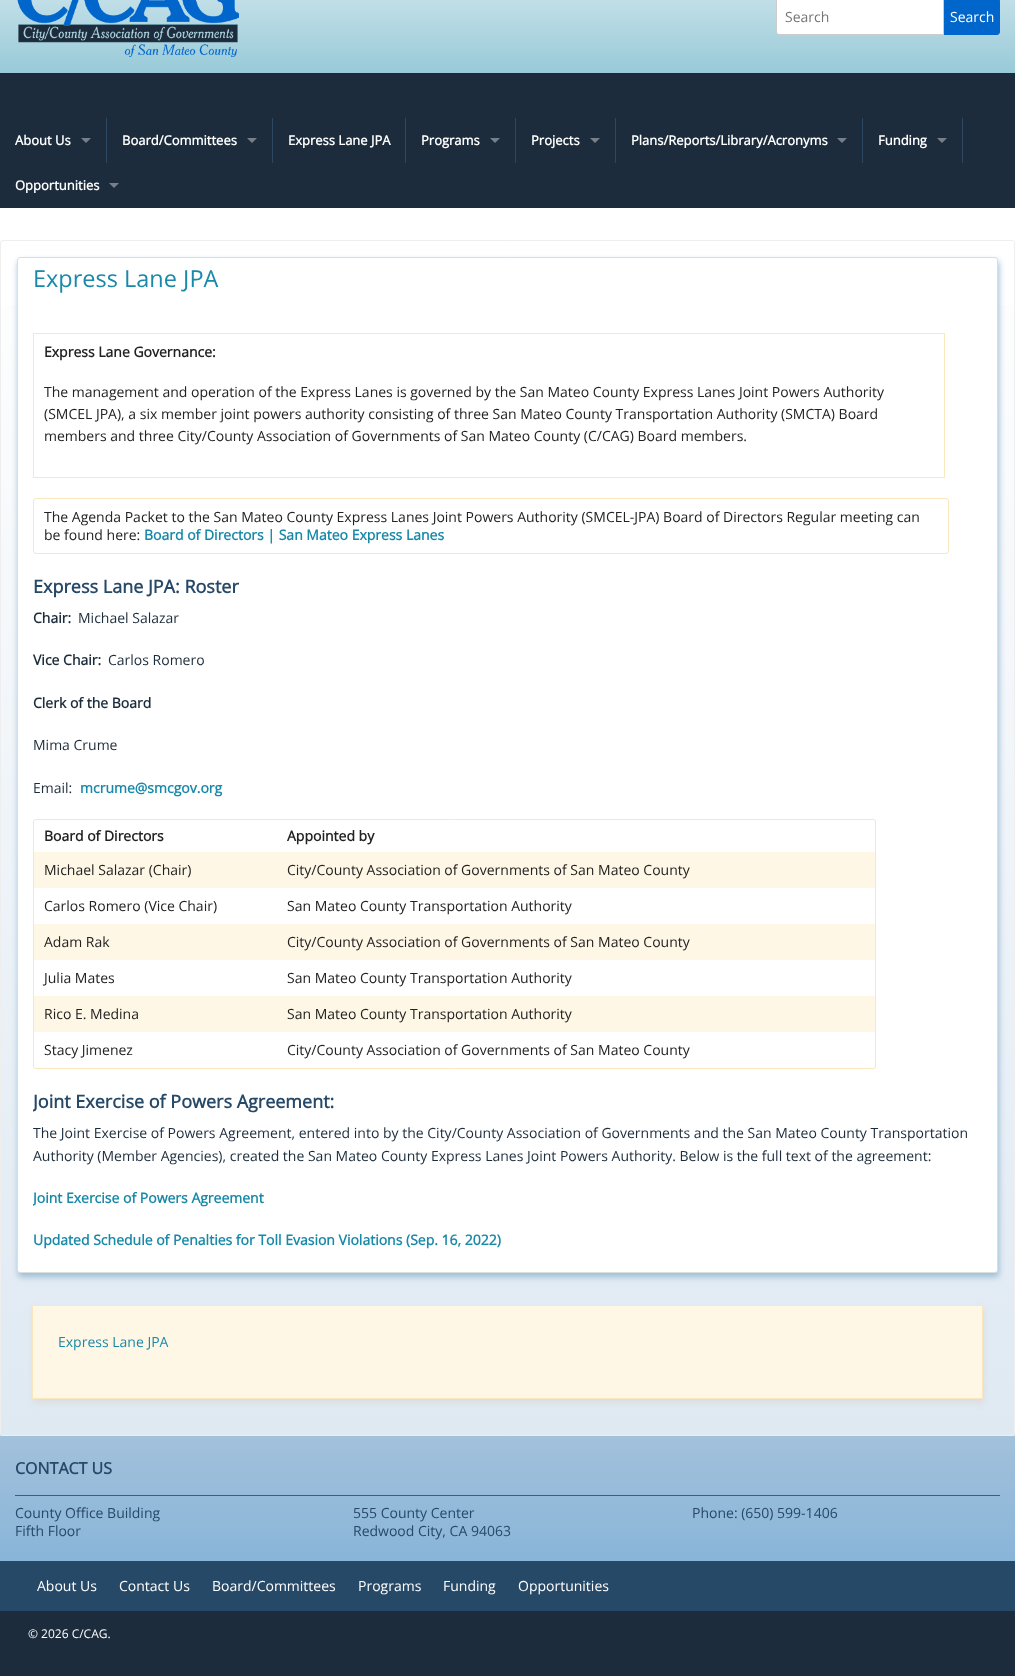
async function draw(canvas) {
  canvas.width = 1015
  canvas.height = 1676
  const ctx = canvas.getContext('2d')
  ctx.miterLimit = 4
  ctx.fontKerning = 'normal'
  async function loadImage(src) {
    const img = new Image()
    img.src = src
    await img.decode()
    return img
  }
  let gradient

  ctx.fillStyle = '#fff'
  ctx.fillRect(0, 0, 1015, 1676)
  gradient = ctx.createLinearGradient(508, -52, 508, 73)
  gradient.addColorStop(0, '#ddedf2')
  gradient.addColorStop(0.01, '#ddedf2')
  gradient.addColorStop(1, '#98cad8')
  ctx.fillStyle = gradient
  ctx.fillRect(0, 0, 1015, 73)
  ctx.drawImage(await loadImage('image0.png'), 17, 0, 222, 57)
  ctx.fillStyle = '#fff'
  ctx.beginPath()
  ctx.moveTo(779, -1.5)
  ctx.lineTo(943.5, -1.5)
  ctx.lineTo(943.5, 34.5)
  ctx.lineTo(779, 34.5)
  ctx.bezierCurveTo(777.5, 34.5, 776.5, 33.5, 776.5, 32)
  ctx.lineTo(776.5, 1)
  ctx.bezierCurveTo(776.5, -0.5, 777.5, -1.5, 779, -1.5)
  ctx.closePath()
  ctx.fill()
  ctx.strokeStyle = '#ccc'
  ctx.stroke()
  ctx.font = '14px Open Sans'
  ctx.fillStyle = '#757575'
  ctx.fillText('Search', 785, 22)
  ctx.fillStyle = '#06c'
  ctx.beginPath()
  ctx.moveTo(944, -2)
  ctx.lineTo(997, -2)
  ctx.bezierCurveTo(998.5, -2, 1000, -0.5, 1000, 1)
  ctx.lineTo(1000, 32)
  ctx.bezierCurveTo(1000, 33.5, 998.5, 35, 997, 35)
  ctx.lineTo(944, 35)
  ctx.closePath()
  ctx.fill()
  ctx.fillStyle = '#fff'
  ctx.fillText('Search', 950, 22)
  ctx.fillStyle = '#1c2c3c'
  ctx.fillRect(0, 73, 1015, 135)
  ctx.font = 'bold 13px Open Sans'
  ctx.fillStyle = '#fff'
  ctx.fillText('About Us', 15, 145)
  ctx.fillStyle = '#77808a'
  ctx.beginPath()
  ctx.moveTo(81, 138)
  ctx.lineTo(91, 138)
  ctx.lineTo(86, 143)
  ctx.closePath()
  ctx.fill()
  ctx.fillStyle = '#2d4761'
  ctx.fillRect(106, 118, 1, 45)
  ctx.fillStyle = '#fff'
  ctx.fillText('Board/Committees', 122, 145)
  ctx.fillStyle = '#77808a'
  ctx.beginPath()
  ctx.moveTo(247, 138)
  ctx.lineTo(257, 138)
  ctx.lineTo(252, 143)
  ctx.closePath()
  ctx.fill()
  ctx.fillStyle = '#2d4761'
  ctx.fillRect(272, 118, 1, 45)
  ctx.fillStyle = '#fff'
  ctx.fillText('Express Lane JPA', 288, 145)
  ctx.fillStyle = '#2d4761'
  ctx.fillRect(405, 118, 1, 45)
  ctx.fillStyle = '#fff'
  ctx.fillText('Programs', 421, 145)
  ctx.fillStyle = '#77808a'
  ctx.beginPath()
  ctx.moveTo(490, 138)
  ctx.lineTo(500, 138)
  ctx.lineTo(495, 143)
  ctx.closePath()
  ctx.fill()
  ctx.fillStyle = '#2d4761'
  ctx.fillRect(515, 118, 1, 45)
  ctx.fillStyle = '#fff'
  ctx.fillText('Projects', 531, 145)
  ctx.fillStyle = '#77808a'
  ctx.beginPath()
  ctx.moveTo(590, 138)
  ctx.lineTo(600, 138)
  ctx.lineTo(595, 143)
  ctx.closePath()
  ctx.fill()
  ctx.fillStyle = '#2d4761'
  ctx.fillRect(615, 118, 1, 45)
  ctx.fillStyle = '#fff'
  ctx.fillText('Plans/Reports/Library/Acronyms', 631, 145)
  ctx.fillStyle = '#77808a'
  ctx.beginPath()
  ctx.moveTo(837, 138)
  ctx.lineTo(847, 138)
  ctx.lineTo(842, 143)
  ctx.closePath()
  ctx.fill()
  ctx.fillStyle = '#2d4761'
  ctx.fillRect(862, 118, 1, 45)
  ctx.fillStyle = '#fff'
  ctx.fillText('Funding', 878, 145)
  ctx.fillStyle = '#77808a'
  ctx.beginPath()
  ctx.moveTo(937, 138)
  ctx.lineTo(947, 138)
  ctx.lineTo(942, 143)
  ctx.closePath()
  ctx.fill()
  ctx.fillStyle = '#2d4761'
  ctx.fillRect(962, 118, 1, 45)
  ctx.fillStyle = '#fff'
  ctx.fillText('Opportunities', 15, 190)
  ctx.fillStyle = '#77808a'
  ctx.beginPath()
  ctx.moveTo(109, 183)
  ctx.lineTo(119, 183)
  ctx.lineTo(114, 188)
  ctx.closePath()
  ctx.fill()
  gradient = ctx.createLinearGradient(507, 240, 508, 1436)
  gradient.addColorStop(0, '#fff')
  gradient.addColorStop(1, '#d1e0ed')
  ctx.fillStyle = gradient
  ctx.fillRect(0, 305, 1015, 1131)
  ctx.fillStyle = '#ffffff4d'
  ctx.beginPath()
  ctx.roundRect(0.5, 240.5, 1014, 1195, 2.5)
  ctx.fill()
  ctx.strokeStyle = '#eee'
  ctx.stroke()
  ctx.fillStyle = '#9cbdd6'
  ctx.filter = 'blur(3px)'
  ctx.beginPath()
  ctx.roundRect(18, 261, 981, 1016, 3)
  ctx.fill()
  ctx.filter = 'none'
  ctx.fillStyle = '#fff'
  ctx.beginPath()
  ctx.roundRect(17.5, 257.5, 980, 1015, 2.5)
  ctx.fill()
  ctx.strokeStyle = '#ddd'
  ctx.stroke()
  ctx.font = '23.5px Open Sans'
  ctx.fillStyle = '#1989a9'
  ctx.fillText('Express Lane JPA', 33, 287)
  ctx.fillStyle = '#fae7be'
  ctx.fillRect(33, 333, 912, 1)
  ctx.fillRect(944, 333, 1, 145)
  ctx.fillRect(33, 477, 912, 1)
  ctx.fillRect(33, 333, 1, 145)
  ctx.font = 'bold 14px Open Sans'
  ctx.fillStyle = '#222'
  ctx.fillText('Express Lane Governance:', 44, 357)
  ctx.font = '14px Open Sans'
  ctx.fillText('The management and operation of the Express Lanes is governed by the San Mateo County Express Lanes Joint Powers Authority', 44, 397)
  ctx.fillText('(SMCEL JPA), a six member joint powers authority consisting of three San Mateo County Transportation Authority (SMCTA) Board', 44, 419)
  ctx.fillText('members and three City/County Association of Governments of San Mateo County (C/CAG) Board members.', 44, 441)
  ctx.beginPath()
  ctx.roundRect(33.5, 498.5, 915, 55, 2.5)
  ctx.strokeStyle = '#fae7be'
  ctx.stroke()
  ctx.fillText('The Agenda Packet to the San Mateo County Express Lanes Joint Powers Authority (SMCEL-JPA) Board of Directors Regular meeting can', 44, 522)
  ctx.fillText('be found here:', 44, 540)
  ctx.font = 'bold 14px Open Sans'
  ctx.fillStyle = '#1989a9'
  ctx.fillText('Board of Directors | San Mateo Express Lanes', 144, 540)
  ctx.font = 'bold 18px Open Sans'
  ctx.fillStyle = '#274968'
  ctx.fillText('Express Lane JPA: Roster', 33, 593)
  ctx.font = 'bold 14px Open Sans'
  ctx.fillStyle = '#1c2c3c'
  ctx.fillText('Chair:', 33, 623)
  ctx.font = '14px Open Sans'
  ctx.fillText('Michael Salazar', 78, 623)
  ctx.font = 'bold 14px Open Sans'
  ctx.fillText('Vice Chair:', 33, 665)
  ctx.font = '14px Open Sans'
  ctx.fillText('Carlos Romero', 108, 665)
  ctx.font = 'bold 14px Open Sans'
  ctx.fillText('Clerk of the Board', 33, 708)
  ctx.font = '14px Open Sans'
  ctx.fillText('Mima Crume', 33, 750)
  ctx.fillText('Email:', 33, 793)
  ctx.font = 'bold 14px Open Sans'
  ctx.fillStyle = '#1989a9'
  ctx.fillText('mcrume@smcgov.org', 80, 793)
  ctx.beginPath()
  ctx.roundRect(33.5, 819.5, 842, 249, 2.5)
  ctx.stroke()
  ctx.fillStyle = '#222'
  ctx.fillText('Board of Directors', 44, 841)
  ctx.fillText('Appointed by', 287, 841)
  ctx.fillStyle = '#fff7e6'
  ctx.fillRect(34, 852, 841, 36)
  ctx.font = '14px Open Sans'
  ctx.fillStyle = '#222'
  ctx.fillText('Michael Salazar (Chair)', 44, 875)
  ctx.fillText('City/County Association of Governments of San Mateo County', 287, 875)
  ctx.fillText('Carlos Romero (Vice Chair)', 44, 911)
  ctx.fillText('San Mateo County Transportation Authority', 287, 911)
  ctx.fillStyle = '#fff7e6'
  ctx.fillRect(34, 924, 841, 36)
  ctx.fillStyle = '#222'
  ctx.fillText('Adam Rak', 44, 947)
  ctx.fillText('City/County Association of Governments of San Mateo County', 287, 947)
  ctx.fillText('Julia Mates', 44, 983)
  ctx.fillText('San Mateo County Transportation Authority', 287, 983)
  ctx.fillStyle = '#fff7e6'
  ctx.fillRect(34, 996, 841, 36)
  ctx.fillStyle = '#222'
  ctx.fillText('Rico E. Medina', 44, 1019)
  ctx.fillText('San Mateo County Transportation Authority', 287, 1019)
  ctx.fillText('Stacy Jimenez', 44, 1055)
  ctx.fillText('City/County Association of Governments of San Mateo County', 287, 1055)
  ctx.save()
  ctx.beginPath()
  ctx.rect(33, 333, 949, 939)
  ctx.clip()
  ctx.font = 'bold 18px Open Sans'
  ctx.fillStyle = '#274968'
  ctx.fillText('Joint Exercise of Powers Agreement:', 33, 1108)
  ctx.restore()
  ctx.fillStyle = '#1c2c3c'
  ctx.fillText('The Joint Exercise of Powers Agreement, entered into by the City/County Association of Governments and the San Mateo County Transportation', 33, 1138)
  ctx.fillText('Authority (Member Agencies), created the San Mateo County Express Lanes Joint Powers Authority. Below is the full text of the agreement:', 33, 1161)
  ctx.save()
  ctx.beginPath()
  ctx.rect(33, 333, 949, 939)
  ctx.clip()
  ctx.font = 'bold 14px Open Sans'
  ctx.fillStyle = '#1989a9'
  ctx.fillText('Joint Exercise of Powers Agreement', 33, 1203)
  ctx.restore()
  ctx.font = 'bold 14px Open Sans'
  ctx.fillStyle = '#1989a9'
  ctx.fillText('Updated Schedule of Penalties for Toll Evasion Violations (Sep. 16, 2022)', 33, 1245)
  ctx.fillStyle = '#ddd'
  ctx.filter = 'blur(3px)'
  ctx.beginPath()
  ctx.rect(33, 1309, 951, 94)
  ctx.fill()
  ctx.filter = 'none'
  ctx.fillStyle = '#fff7e6'
  ctx.beginPath()
  ctx.rect(32.5, 1305.5, 950, 93)
  ctx.fill()
  ctx.stroke()
  ctx.font = '14px Open Sans'
  ctx.fillStyle = '#1989a9'
  ctx.fillText('Express Lane JPA', 58, 1347)
  gradient = ctx.createLinearGradient(508, 1436, 508, 1611)
  gradient.addColorStop(0.01, '#a2c1db')
  gradient.addColorStop(0.99, '#7fb0d8')
  ctx.fillStyle = gradient
  ctx.fillRect(0, 1436, 1015, 125)
  ctx.fillStyle = '#166e87'
  ctx.fillRect(15, 1495, 985, 1)
  ctx.font = 'bold 16px Open Sans'
  ctx.fillStyle = '#274968'
  ctx.fillText('CONTACT US', 15, 1474)
  ctx.font = '14px Open Sans'
  ctx.fillText('County Office Building', 15, 1518)
  ctx.fillText('Fifth Floor', 15, 1536)
  ctx.fillText('555 County Center', 353, 1518)
  ctx.fillText('Redwood City, CA 94063', 353, 1536)
  ctx.fillText('Phone: (650) 599-1406', 692, 1518)
  ctx.fillRect(0, 1561, 1015, 50)
  ctx.fillStyle = '#fff'
  ctx.fillText('About Us', 37, 1591)
  ctx.fillText('Contact Us', 119, 1591)
  ctx.fillText('Board/Committees', 212, 1591)
  ctx.fillText('Programs', 358, 1591)
  ctx.fillText('Funding', 443, 1591)
  ctx.fillText('Opportunities', 518, 1591)
  ctx.fillStyle = '#1c2c3c'
  ctx.fillRect(0, 1611, 1015, 65)
  ctx.font = '12px Open Sans'
  ctx.fillStyle = '#fff'
  ctx.fillText('© 2026 C/CAG.', 28, 1638)
}

draw(document.querySelector('canvas'))
